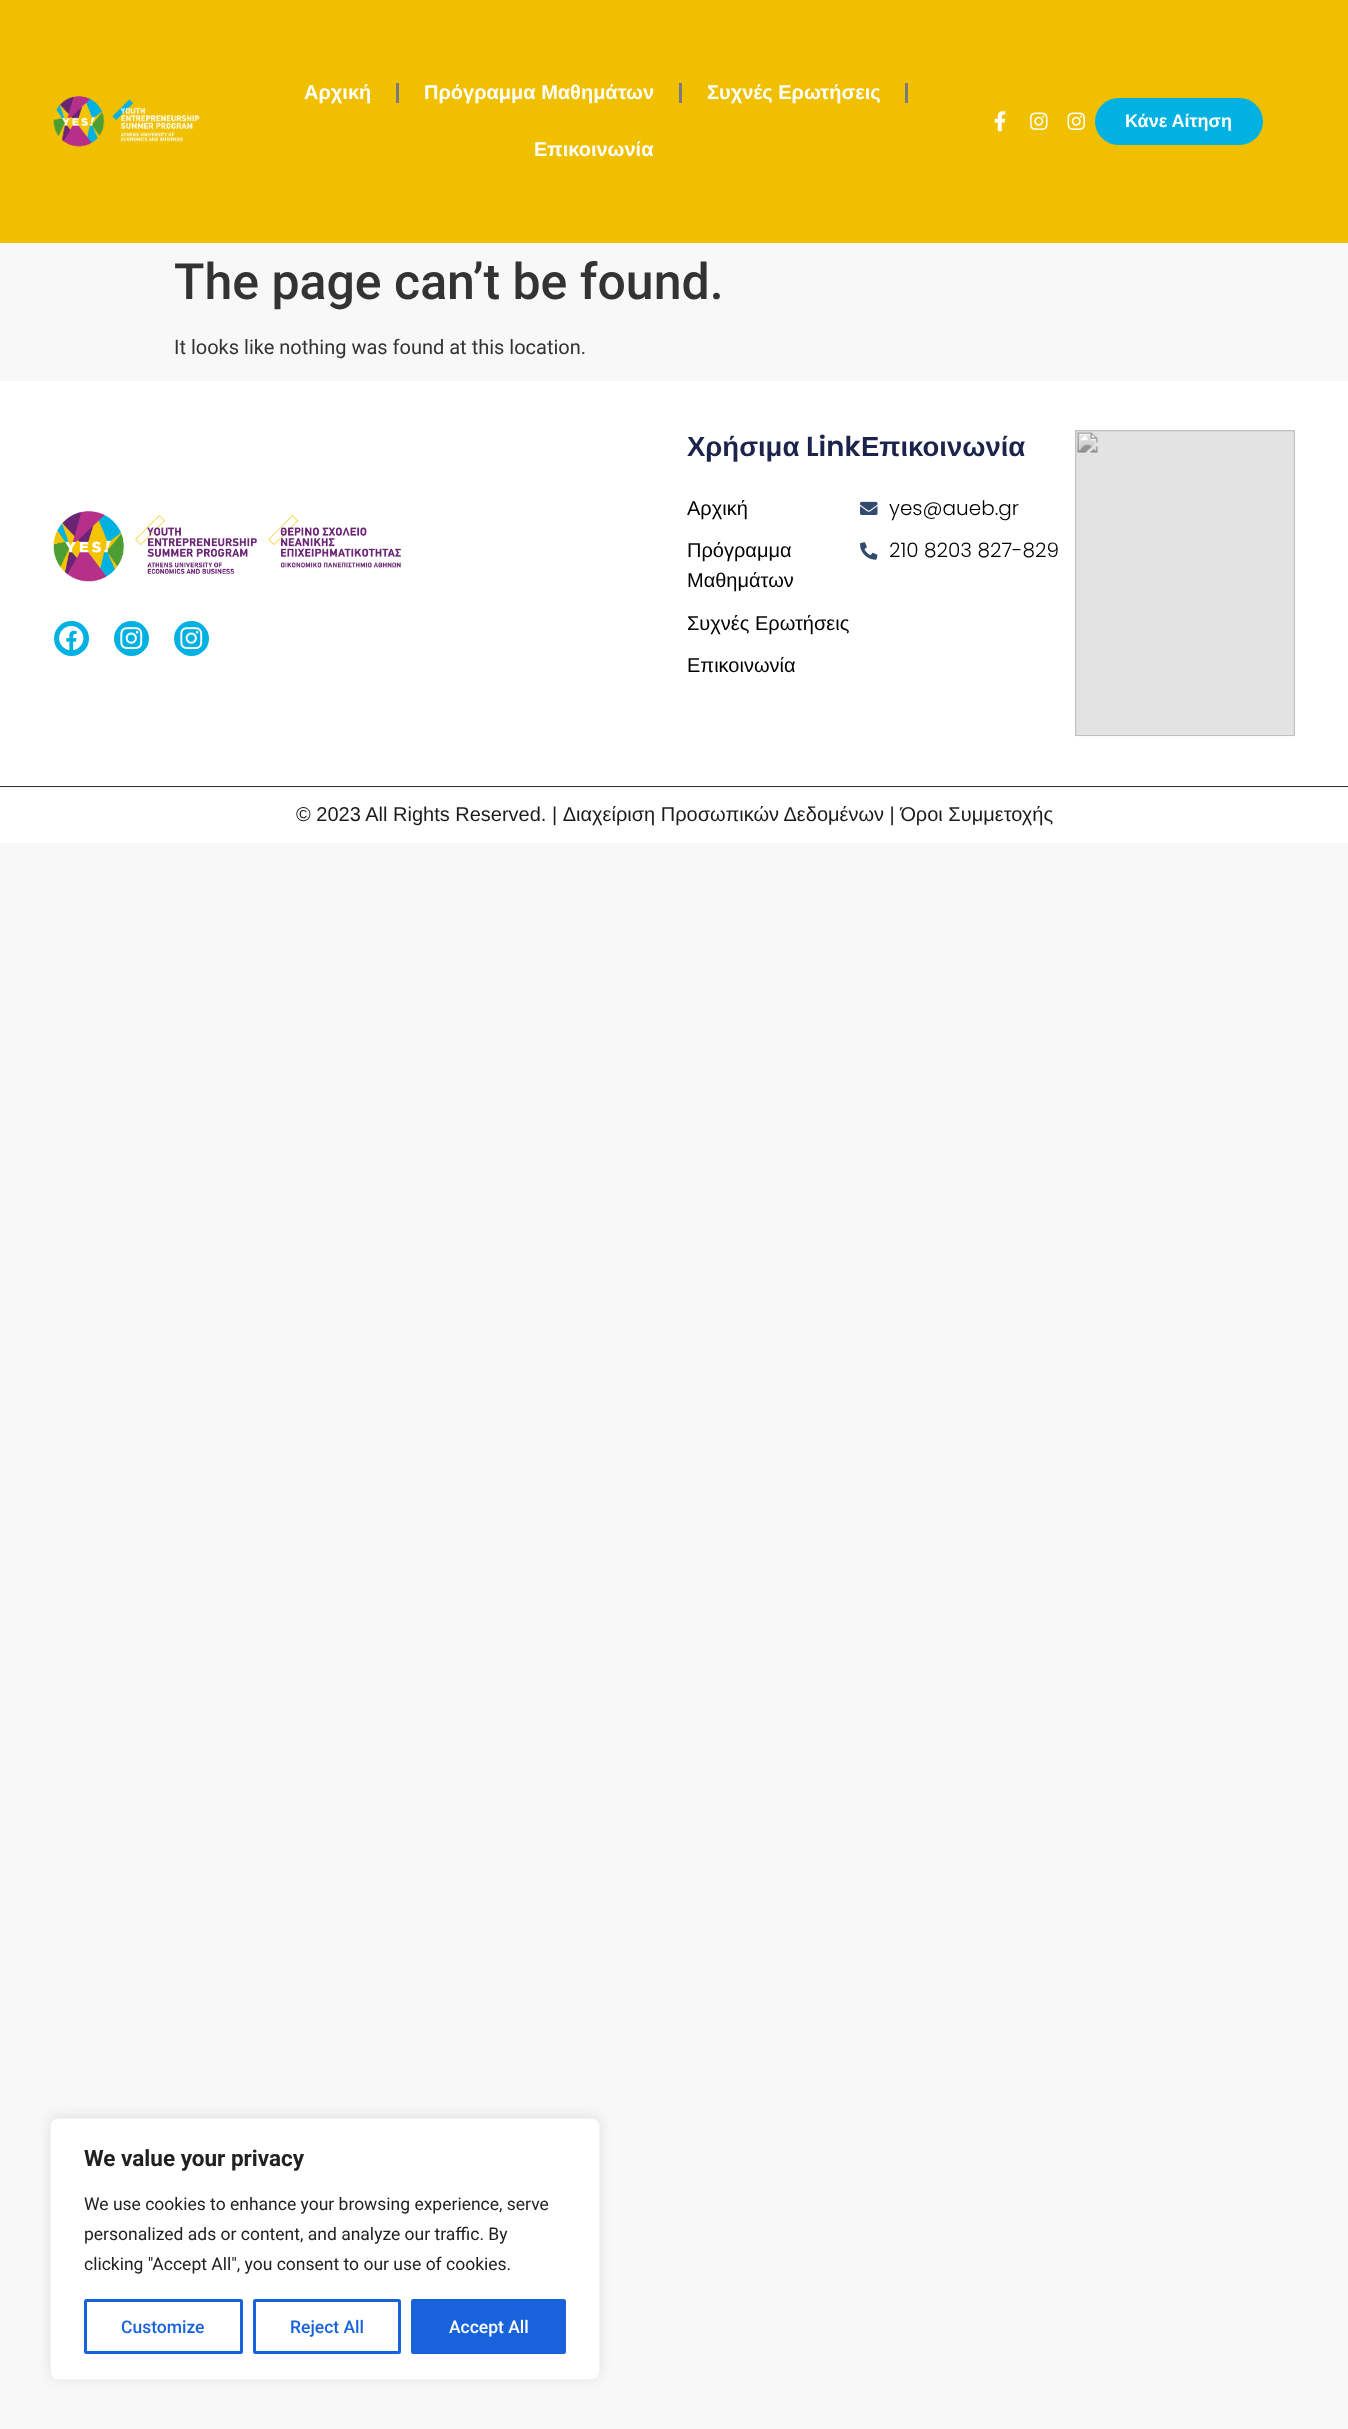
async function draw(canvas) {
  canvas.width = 1348
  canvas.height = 2429
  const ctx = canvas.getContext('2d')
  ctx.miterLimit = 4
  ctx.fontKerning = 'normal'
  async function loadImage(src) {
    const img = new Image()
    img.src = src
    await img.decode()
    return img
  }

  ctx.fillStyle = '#f8f8f8'
  ctx.fillRect(0, 0, 1348, 2429)
  ctx.fillStyle = '#f0c000'
  ctx.fillRect(0, 0, 1348, 243)
  ctx.drawImage(await loadImage('image0.png'), 53, 96, 147, 51)
  ctx.font = 'bold 20px Liberation Sans'
  ctx.fillStyle = '#fff'
  ctx.fillText('Αρχική', 304, 99)
  ctx.fillStyle = '#7a7a7a'
  ctx.fillRect(396, 83, 3, 20)
  ctx.fillStyle = '#fff'
  ctx.fillText('Πρόγραμμα Μαθημάτων', 424, 99)
  ctx.fillStyle = '#7a7a7a'
  ctx.fillRect(679, 83, 3, 20)
  ctx.fillStyle = '#fff'
  ctx.fillText('Συχνές Ερωτήσεις', 707, 99)
  ctx.fillStyle = '#7a7a7a'
  ctx.fillRect(905, 83, 3, 20)
  ctx.fillStyle = '#fff'
  ctx.fillText('Επικοινωνία', 534, 156)
  ctx.drawImage(await loadImage('image1.png'), 994, 111, 12, 21)
  ctx.drawImage(await loadImage('image2.png'), 1030, 112, 18, 18)
  ctx.drawImage(await loadImage('image3.png'), 1067, 112, 19, 18)
  ctx.fillStyle = '#00b1e1'
  ctx.beginPath()
  ctx.roundRect(1095, 98, 168, 47, 23.5)
  ctx.fill()
  ctx.font = 'bold 18px Liberation Sans'
  ctx.fillStyle = '#fff'
  ctx.fillText('Κάνε Αίτηση', 1125, 127)
  ctx.font = '500 50px Roboto'
  ctx.fillStyle = '#333'
  ctx.fillText('The page can’t be found.', 174, 299)
  ctx.font = '20px Roboto'
  ctx.fillText('It looks like nothing was found at this location.', 174, 354)
  ctx.fillStyle = '#fff'
  ctx.fillRect(0, 381, 1348, 405)
  ctx.font = 'bold 27.5px Liberation Sans'
  ctx.fillStyle = '#1c244b'
  ctx.fillText('Χρήσιμα', 687, 456)
  ctx.font = '600 27.5px Poppins'
  ctx.fillText('Link', 806, 456)
  ctx.font = '20px Liberation Sans'
  ctx.fillStyle = '#000'
  ctx.fillText('Αρχική', 687, 515)
  ctx.fillText('Πρόγραμμα', 687, 557)
  ctx.fillText('Μαθημάτων', 687, 587)
  ctx.fillText('Συχνές Ερωτήσεις', 687, 630)
  ctx.fillText('Επικοινωνία', 687, 672)
  ctx.font = 'bold 27.5px Liberation Sans'
  ctx.fillStyle = '#1c244b'
  ctx.fillText('Επικοινωνία', 861, 456)
  ctx.drawImage(await loadImage('image4.png'), 860, 501, 18, 14)
  ctx.font = '300 20px Poppins'
  ctx.fillStyle = '#000'
  ctx.fillText('yes@aueb.gr', 889, 515)
  ctx.drawImage(await loadImage('image5.png'), 860, 542, 18, 18)
  ctx.fillText('210 8203 827-829', 889, 557)
  ctx.drawImage(await loadImage('image6.png'), 1075, 430, 220, 307)
  ctx.drawImage(await loadImage('image7.png'), 53, 511, 349, 71)
  ctx.fillStyle = '#00b1e1'
  ctx.beginPath()
  ctx.arc(71.5, 638.5, 17.5, 0, 2 * Math.PI)
  ctx.fill()
  ctx.drawImage(await loadImage('image8.png'), 59, 626, 25, 24)
  ctx.beginPath()
  ctx.arc(131.5, 638.5, 17.5, 0, 2 * Math.PI)
  ctx.fill()
  ctx.drawImage(await loadImage('image9.png'), 120, 627, 23, 23)
  ctx.beginPath()
  ctx.arc(191.5, 638.5, 17.5, 0, 2 * Math.PI)
  ctx.fill()
  ctx.drawImage(await loadImage('image10.png'), 180, 627, 23, 23)
  ctx.fillStyle = '#fff'
  ctx.fillRect(0, 788, 1348, 55)
  ctx.fillStyle = '#333'
  ctx.fillRect(0, 786, 1348, 1)
  ctx.font = '20px Liberation Sans'
  ctx.fillStyle = '#1b1b1b'
  ctx.fillText('© 2023 All Rights Reserved. | Διαχείριση Προσωπικών Δεδομένων | Όροι Συμμετοχής', 296, 821)
  ctx.fillStyle = '#acabab4d'
  ctx.filter = 'blur(6px)'
  ctx.beginPath()
  ctx.roundRect(50, 2116, 550, 263, 8)
  ctx.fill()
  ctx.filter = 'none'
  ctx.fillStyle = '#fff'
  ctx.beginPath()
  ctx.roundRect(50.5, 2118.5, 549, 261, 7.5)
  ctx.fill()
  ctx.strokeStyle = '#f4f4f4'
  ctx.stroke()
  ctx.font = 'bold 22.5px Roboto'
  ctx.fillStyle = '#212121'
  ctx.fillText('We value your privacy', 84, 2166)
  ctx.font = '17.5px Roboto'
  ctx.fillText('We use cookies to enhance your browsing experience, serve', 84, 2210)
  ctx.fillText('personalized ads or content, and analyze our traffic. By', 84, 2240)
  ctx.fillText('clicking "Accept All", you consent to our use of cookies.', 84, 2270)
  ctx.beginPath()
  ctx.roundRect(85.5, 2300.5, 156, 52, 1)
  ctx.strokeStyle = '#1863dc'
  ctx.lineWidth = 3
  ctx.stroke()
  ctx.font = '500 17.5px Roboto'
  ctx.fillStyle = '#1863dc'
  ctx.fillText('Customize', 121, 2333)
  ctx.beginPath()
  ctx.roundRect(254.5, 2300.5, 145, 52, 1)
  ctx.stroke()
  ctx.fillText('Reject All', 290, 2333)
  ctx.beginPath()
  ctx.roundRect(412.5, 2300.5, 152, 52, 1)
  ctx.fill()
  ctx.stroke()
  ctx.fillStyle = '#fff'
  ctx.fillText('Accept All', 449, 2333)
}

draw(document.querySelector('canvas'))
